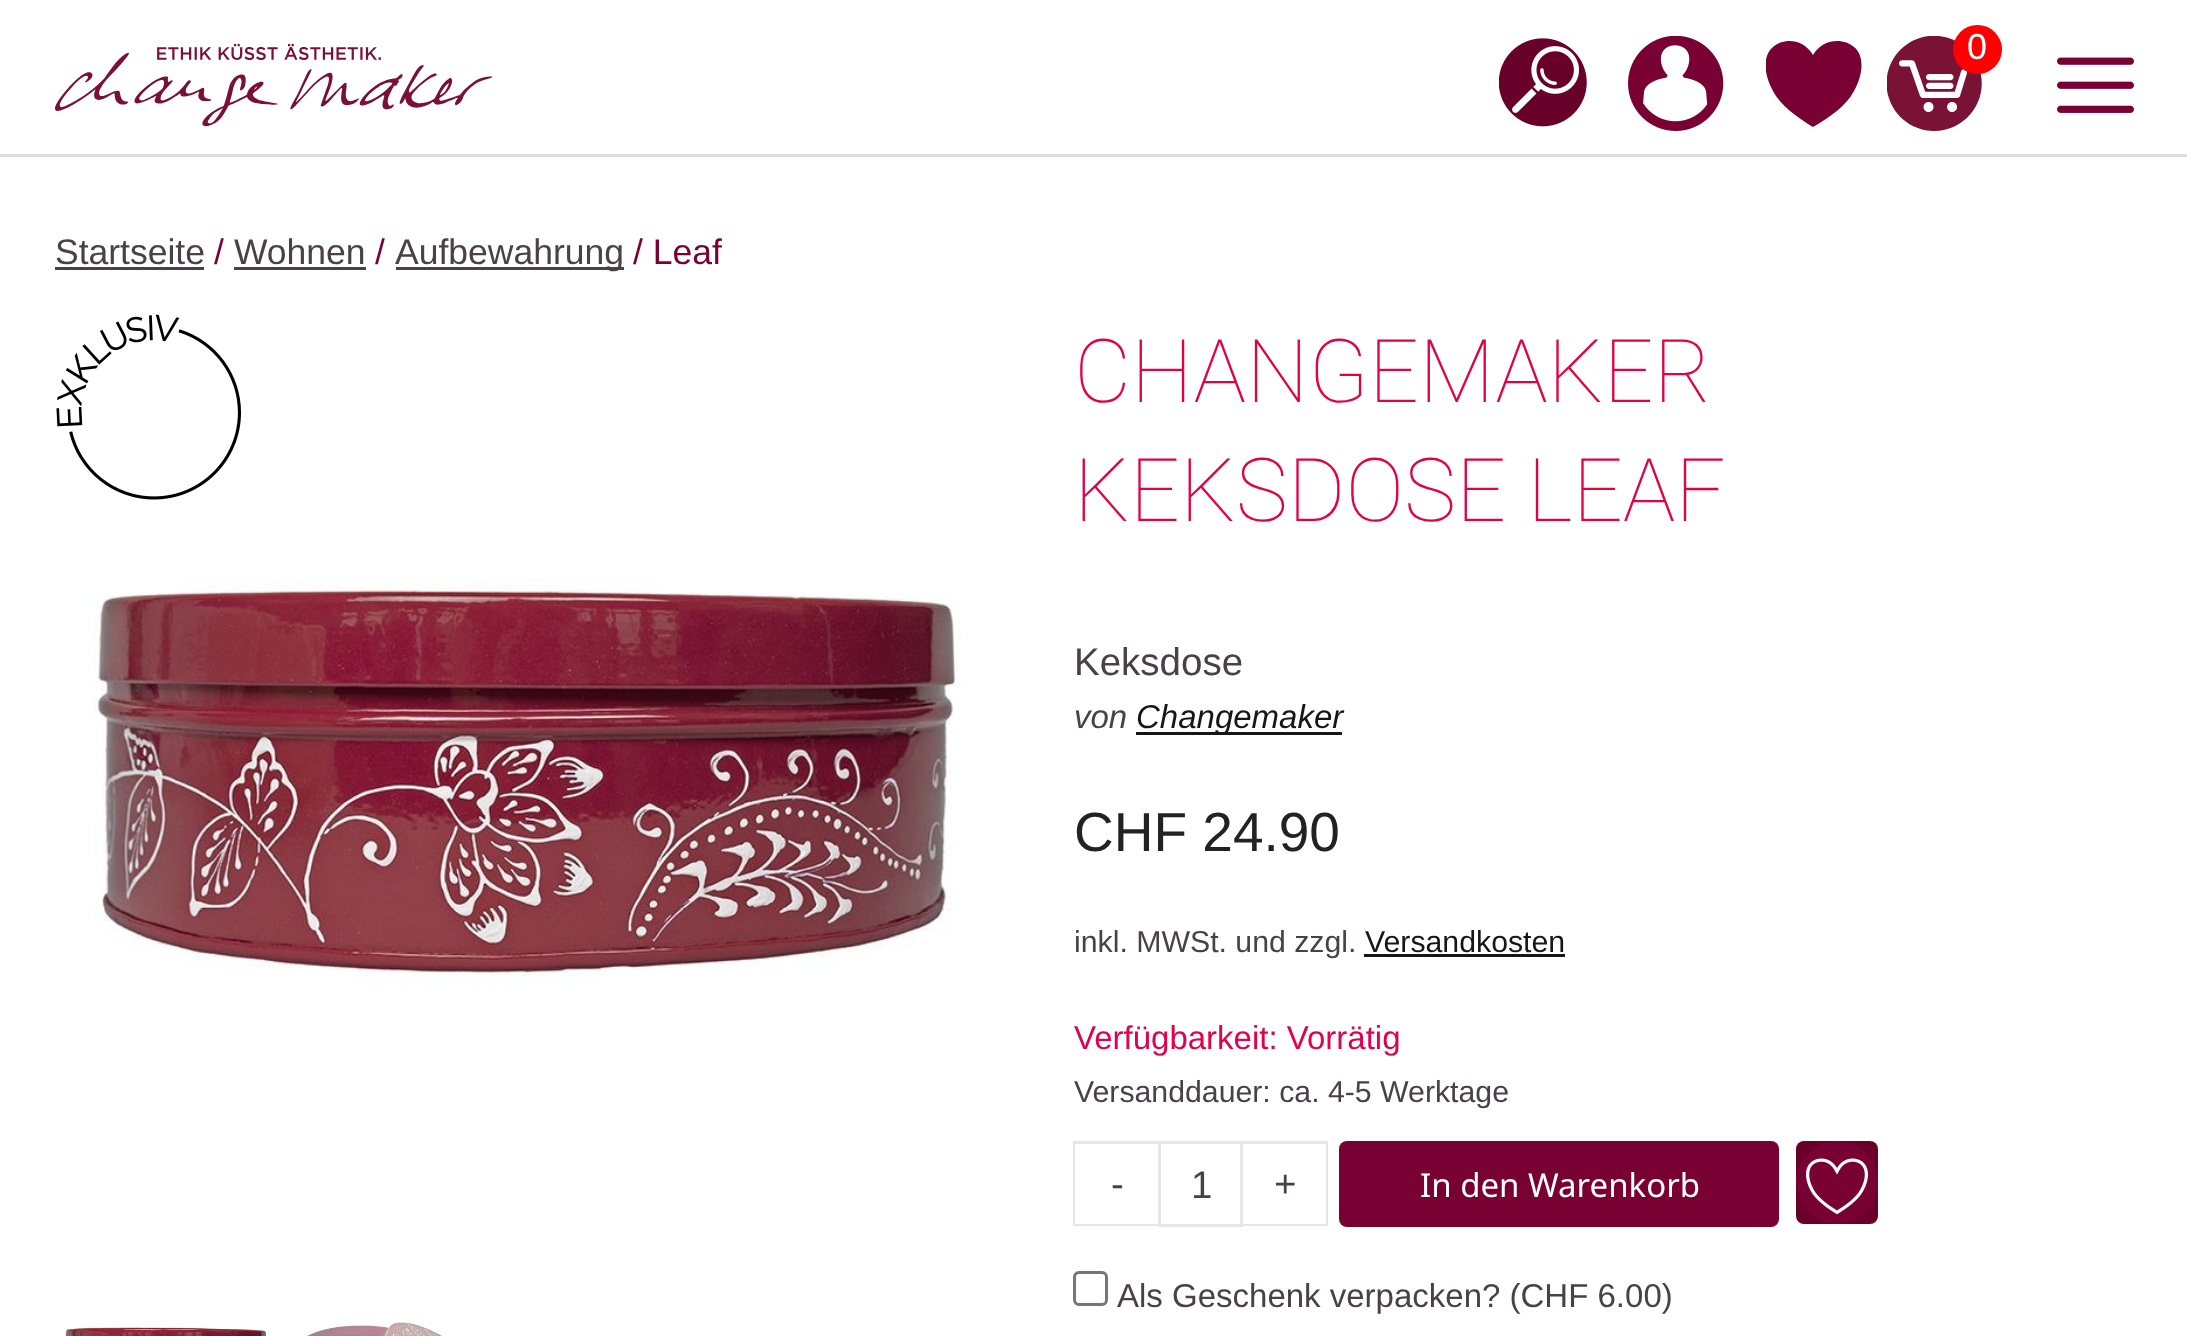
async function draw(canvas) {
  canvas.width = 2187
  canvas.height = 1336
  const ctx = canvas.getContext('2d')
  ctx.miterLimit = 4
  ctx.fontKerning = 'normal'
  async function loadImage(src) {
    const img = new Image()
    img.src = src
    await img.decode()
    return img
  }

  ctx.fillStyle = '#fff'
  ctx.fillRect(0, 0, 2187, 1336)
  ctx.fillStyle = '#ddd'
  ctx.fillRect(0, 154, 2187, 3)
  ctx.drawImage(await loadImage('image0.png'), 55, 44, 437, 83)
  ctx.drawImage(await loadImage('image1.png'), 1499, 38, 88, 89)
  ctx.drawImage(await loadImage('image2.png'), 1628, 36, 96, 95)
  ctx.save()
  ctx.beginPath()
  ctx.rect(1766, 36, 96, 96)
  ctx.clip()
  ctx.fillStyle = '#790033'
  ctx.beginPath()
  ctx.moveTo(1813, 55)
  ctx.bezierCurveTo(1823, 38, 1844, 38, 1854, 47)
  ctx.bezierCurveTo(1864, 55, 1864, 73, 1854, 91)
  ctx.bezierCurveTo(1847, 105, 1829, 118, 1813, 127)
  ctx.bezierCurveTo(1798, 118, 1780, 105, 1773, 91)
  ctx.bezierCurveTo(1763, 73, 1763, 55, 1773, 47)
  ctx.bezierCurveTo(1783, 38, 1803, 38, 1813, 55)
  ctx.closePath()
  ctx.fill('evenodd')
  ctx.restore()
  ctx.drawImage(await loadImage('image3.png'), 1887, 36, 95, 95)
  ctx.fillStyle = '#f00'
  ctx.beginPath()
  ctx.arc(1977.5, 49.5, 24.5, 0, 2 * Math.PI)
  ctx.fill()
  ctx.font = '36px Liberation Sans'
  ctx.fillStyle = '#fff'
  ctx.fillText('0', 1967, 59)
  ctx.drawImage(await loadImage('image4.png'), 2057, 57, 77, 56)
  ctx.font = '35.5px Liberation Sans'
  ctx.fillStyle = '#4b4046'
  ctx.fillText('Startseite', 55, 264)
  ctx.fillRect(55, 267, 149, 3)
  ctx.fillStyle = '#790033'
  ctx.fillText('/', 214, 264)
  ctx.fillStyle = '#4b4046'
  ctx.fillText('Wohnen', 234, 264)
  ctx.fillRect(234, 267, 132, 3)
  ctx.fillStyle = '#790033'
  ctx.fillText('/', 375, 264)
  ctx.fillStyle = '#4b4046'
  ctx.fillRect(396, 267, 228, 3)
  ctx.fillText('Aufbewahrung', 395, 264)
  ctx.fillStyle = '#790033'
  ctx.fillText('/ Leaf', 633, 264)
  ctx.drawImage(await loadImage('image5.png'), 56, 314, 185, 186)
  ctx.font = '100 88px Roboto'
  ctx.fillStyle = '#e30044'
  ctx.fillText('CHANGEMAKER', 1074, 402)
  ctx.fillText('KEKSDOSE LEAF', 1074, 521)
  ctx.font = '38.5px Liberation Sans'
  ctx.fillStyle = '#4b4046'
  ctx.fillText('Keksdose', 1074, 675)
  ctx.font = 'italic 33px Liberation Sans'
  ctx.fillText('von', 1074, 728)
  ctx.fillStyle = '#161616'
  ctx.fillRect(1136, 732, 206, 3)
  ctx.fillText('Changemaker', 1136, 728)
  ctx.font = '55px Liberation Sans'
  ctx.fillStyle = '#222'
  ctx.fillText('CHF 24.90', 1074, 851)
  ctx.font = '30.25px Liberation Sans'
  ctx.fillStyle = '#4b4046'
  ctx.fillText('inkl. MWSt. und zzgl.', 1074, 952)
  ctx.fillStyle = '#161616'
  ctx.fillText('Versandkosten', 1365, 952)
  ctx.fillRect(1364, 954, 201, 3)
  ctx.font = '33px Liberation Sans'
  ctx.fillStyle = '#e3004e'
  ctx.fillText('Verfügbarkeit: Vorrätig', 1074, 1049)
  ctx.font = '30.25px Liberation Sans'
  ctx.fillStyle = '#4b4046'
  ctx.fillText('Versanddauer: ca. 4-5 Werktage', 1074, 1102)
  ctx.fillStyle = '#e6e6e6'
  ctx.beginPath()
  ctx.moveTo(1072, 1141)
  ctx.lineTo(1158, 1141)
  ctx.lineTo(1158, 1144)
  ctx.lineTo(1075, 1144)
  ctx.closePath()
  ctx.fill()
  ctx.beginPath()
  ctx.moveTo(1158, 1226)
  ctx.lineTo(1072, 1226)
  ctx.lineTo(1075, 1224)
  ctx.lineTo(1158, 1224)
  ctx.closePath()
  ctx.fill()
  ctx.save()
  ctx.beginPath()
  ctx.rect(1073, 314, 1061, 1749)
  ctx.clip()
  ctx.fillStyle = '#0000001a'
  ctx.beginPath()
  ctx.moveTo(1072, 1226)
  ctx.lineTo(1072, 1141)
  ctx.lineTo(1075, 1144)
  ctx.lineTo(1075, 1224)
  ctx.closePath()
  ctx.fill()
  ctx.restore()
  ctx.font = '38.5px Liberation Sans'
  ctx.fillStyle = '#4b4046'
  ctx.fillText('-', 1111, 1197)
  ctx.strokeStyle = '#e6e6e6'
  ctx.lineWidth = 3
  ctx.strokeRect(1159.5, 1142.5, 82, 83)
  ctx.fillText('1', 1191, 1198)
  ctx.fillStyle = '#e6e6e6'
  ctx.beginPath()
  ctx.moveTo(1243, 1141)
  ctx.lineTo(1328, 1141)
  ctx.lineTo(1326, 1144)
  ctx.lineTo(1243, 1144)
  ctx.closePath()
  ctx.fill()
  ctx.fillStyle = '#0000001a'
  ctx.beginPath()
  ctx.moveTo(1328, 1141)
  ctx.lineTo(1328, 1226)
  ctx.lineTo(1326, 1224)
  ctx.lineTo(1326, 1144)
  ctx.closePath()
  ctx.fill()
  ctx.beginPath()
  ctx.moveTo(1328, 1226)
  ctx.lineTo(1243, 1226)
  ctx.lineTo(1243, 1224)
  ctx.lineTo(1326, 1224)
  ctx.closePath()
  ctx.fill()
  ctx.fillStyle = '#4b4046'
  ctx.fillText('+', 1274, 1197)
  ctx.fillStyle = '#790033'
  ctx.beginPath()
  ctx.roundRect(1339, 1141, 440, 86, 8)
  ctx.fill()
  ctx.font = '33px Noto Sans'
  ctx.fillStyle = '#fff'
  ctx.fillText('In den Warenkorb', 1420, 1197)
  ctx.fillStyle = '#68002a'
  ctx.beginPath()
  ctx.roundRect(1796, 1141, 82, 83, 8)
  ctx.fill()
  ctx.drawImage(await loadImage('image6.png'), 1796, 1141, 82, 83)
  ctx.beginPath()
  ctx.roundRect(1074.5, 1272.5, 32, 32, 4.5)
  ctx.strokeStyle = '#767676'
  ctx.stroke()
  ctx.font = '33px Liberation Sans'
  ctx.fillStyle = '#4b4046'
  ctx.fillText('Als Geschenk verpacken? (CHF 6.00)', 1117, 1307)
  ctx.drawImage(await loadImage('image7.png'), 93, 578, 868, 408)
  ctx.drawImage(await loadImage('image8.png'), 64, 1324, 203, 12)
  ctx.drawImage(await loadImage('image9.png'), 307, 1322, 135, 14)
}

draw(document.querySelector('canvas'))
